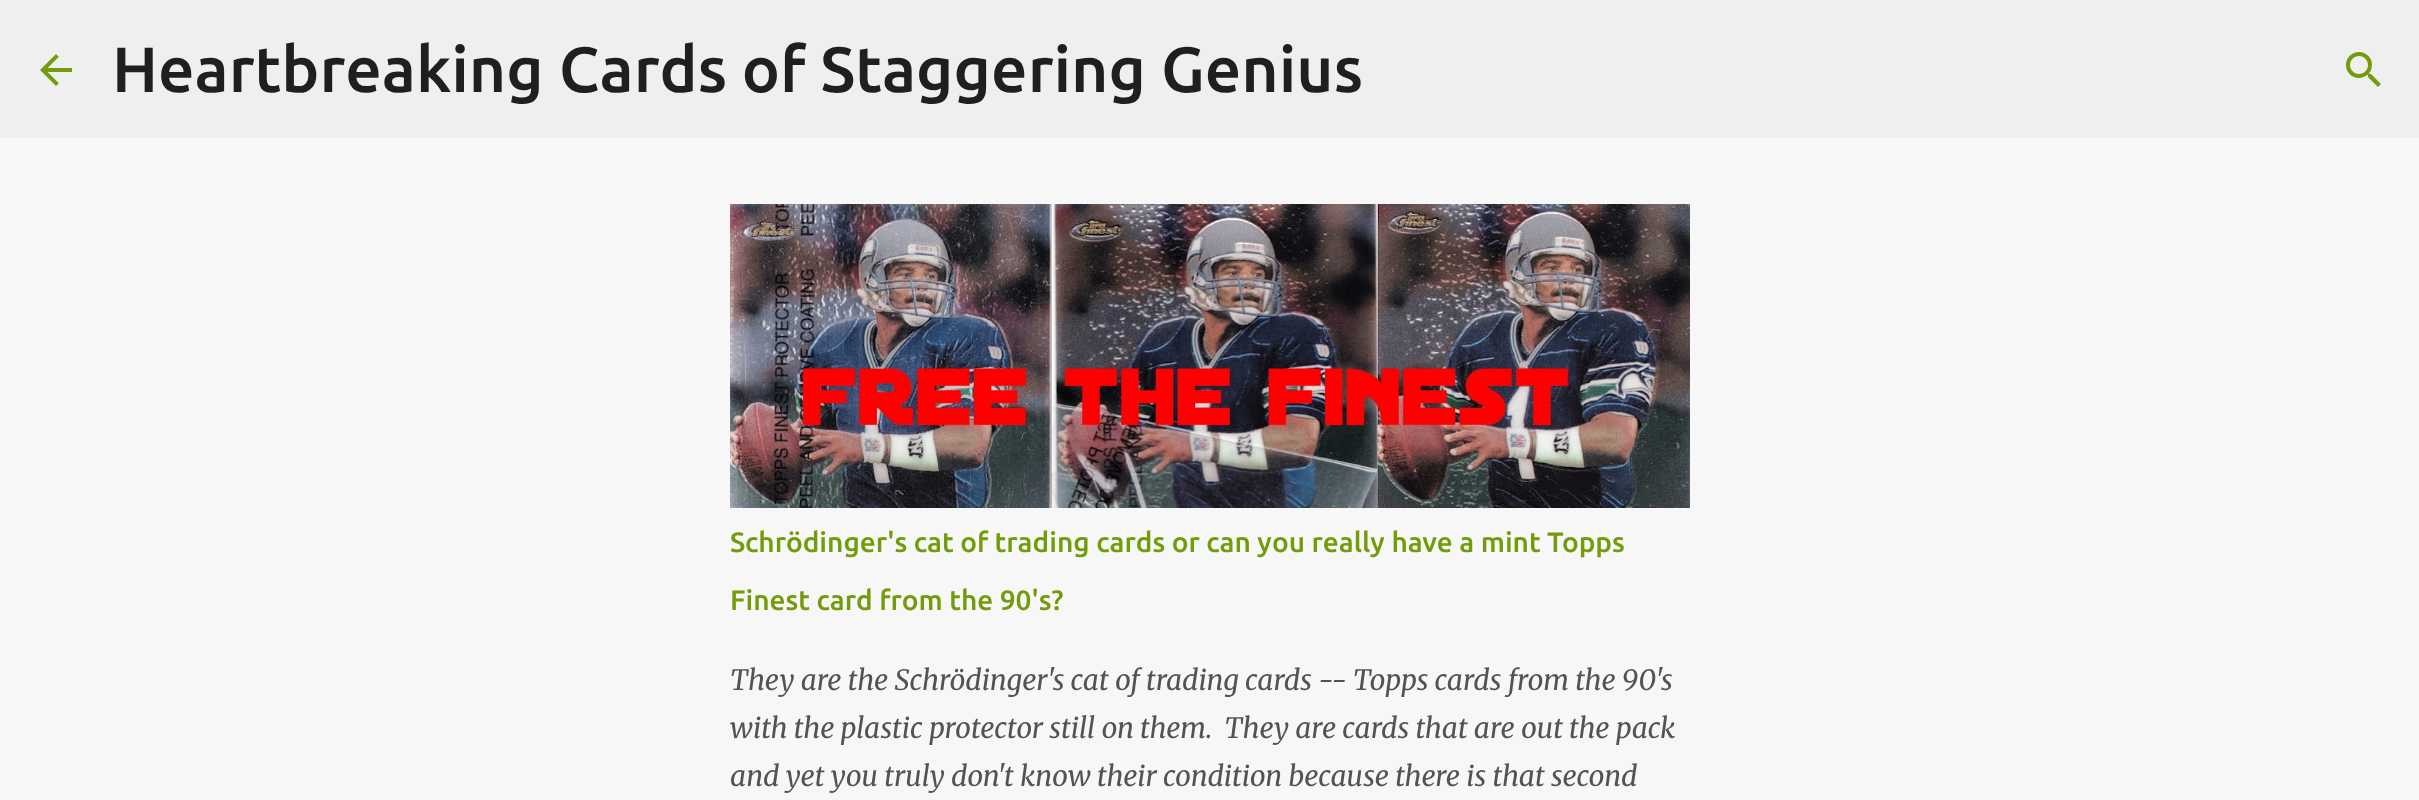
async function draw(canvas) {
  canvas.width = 2419
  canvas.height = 800
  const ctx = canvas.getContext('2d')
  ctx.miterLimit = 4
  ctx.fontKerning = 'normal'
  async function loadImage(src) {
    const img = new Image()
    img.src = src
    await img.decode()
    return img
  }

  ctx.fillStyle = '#f7f7f7'
  ctx.fillRect(0, 0, 2419, 800)
  ctx.fillStyle = '#efefef'
  ctx.fillRect(0, 0, 2419, 138)
  ctx.drawImage(await loadImage('image0.png'), 40, 54, 32, 32)
  ctx.font = '500 64px Ubuntu'
  ctx.fillStyle = '#1f1f1f'
  ctx.fillText('Heartbreaking Cards of Staggering Genius', 112, 92)
  ctx.drawImage(await loadImage('image1.png'), 2346, 52, 35, 35)
  ctx.drawImage(await loadImage('image2.png'), 730, 204, 960, 304)
  ctx.font = '500 28px Ubuntu'
  ctx.fillStyle = '#729c0b'
  ctx.fillText('Schrödinger\'s cat of trading cards or can you really have a mint Topps', 730, 552)
  ctx.fillText('Finest card from the 90\'s?', 730, 610)
  ctx.font = 'italic 28px Merriweather'
  ctx.fillStyle = '#535353'
  ctx.fillText('They are the Schrödinger\'s cat of trading cards -- Topps cards from the 90\'s', 730, 690)
  ctx.fillText('with the plastic protector still on them.  They are cards that are out the pack', 730, 738)
  ctx.fillText('and yet you truly don\'t know their condition because there is that second', 730, 786)
}

draw(document.querySelector('canvas'))
